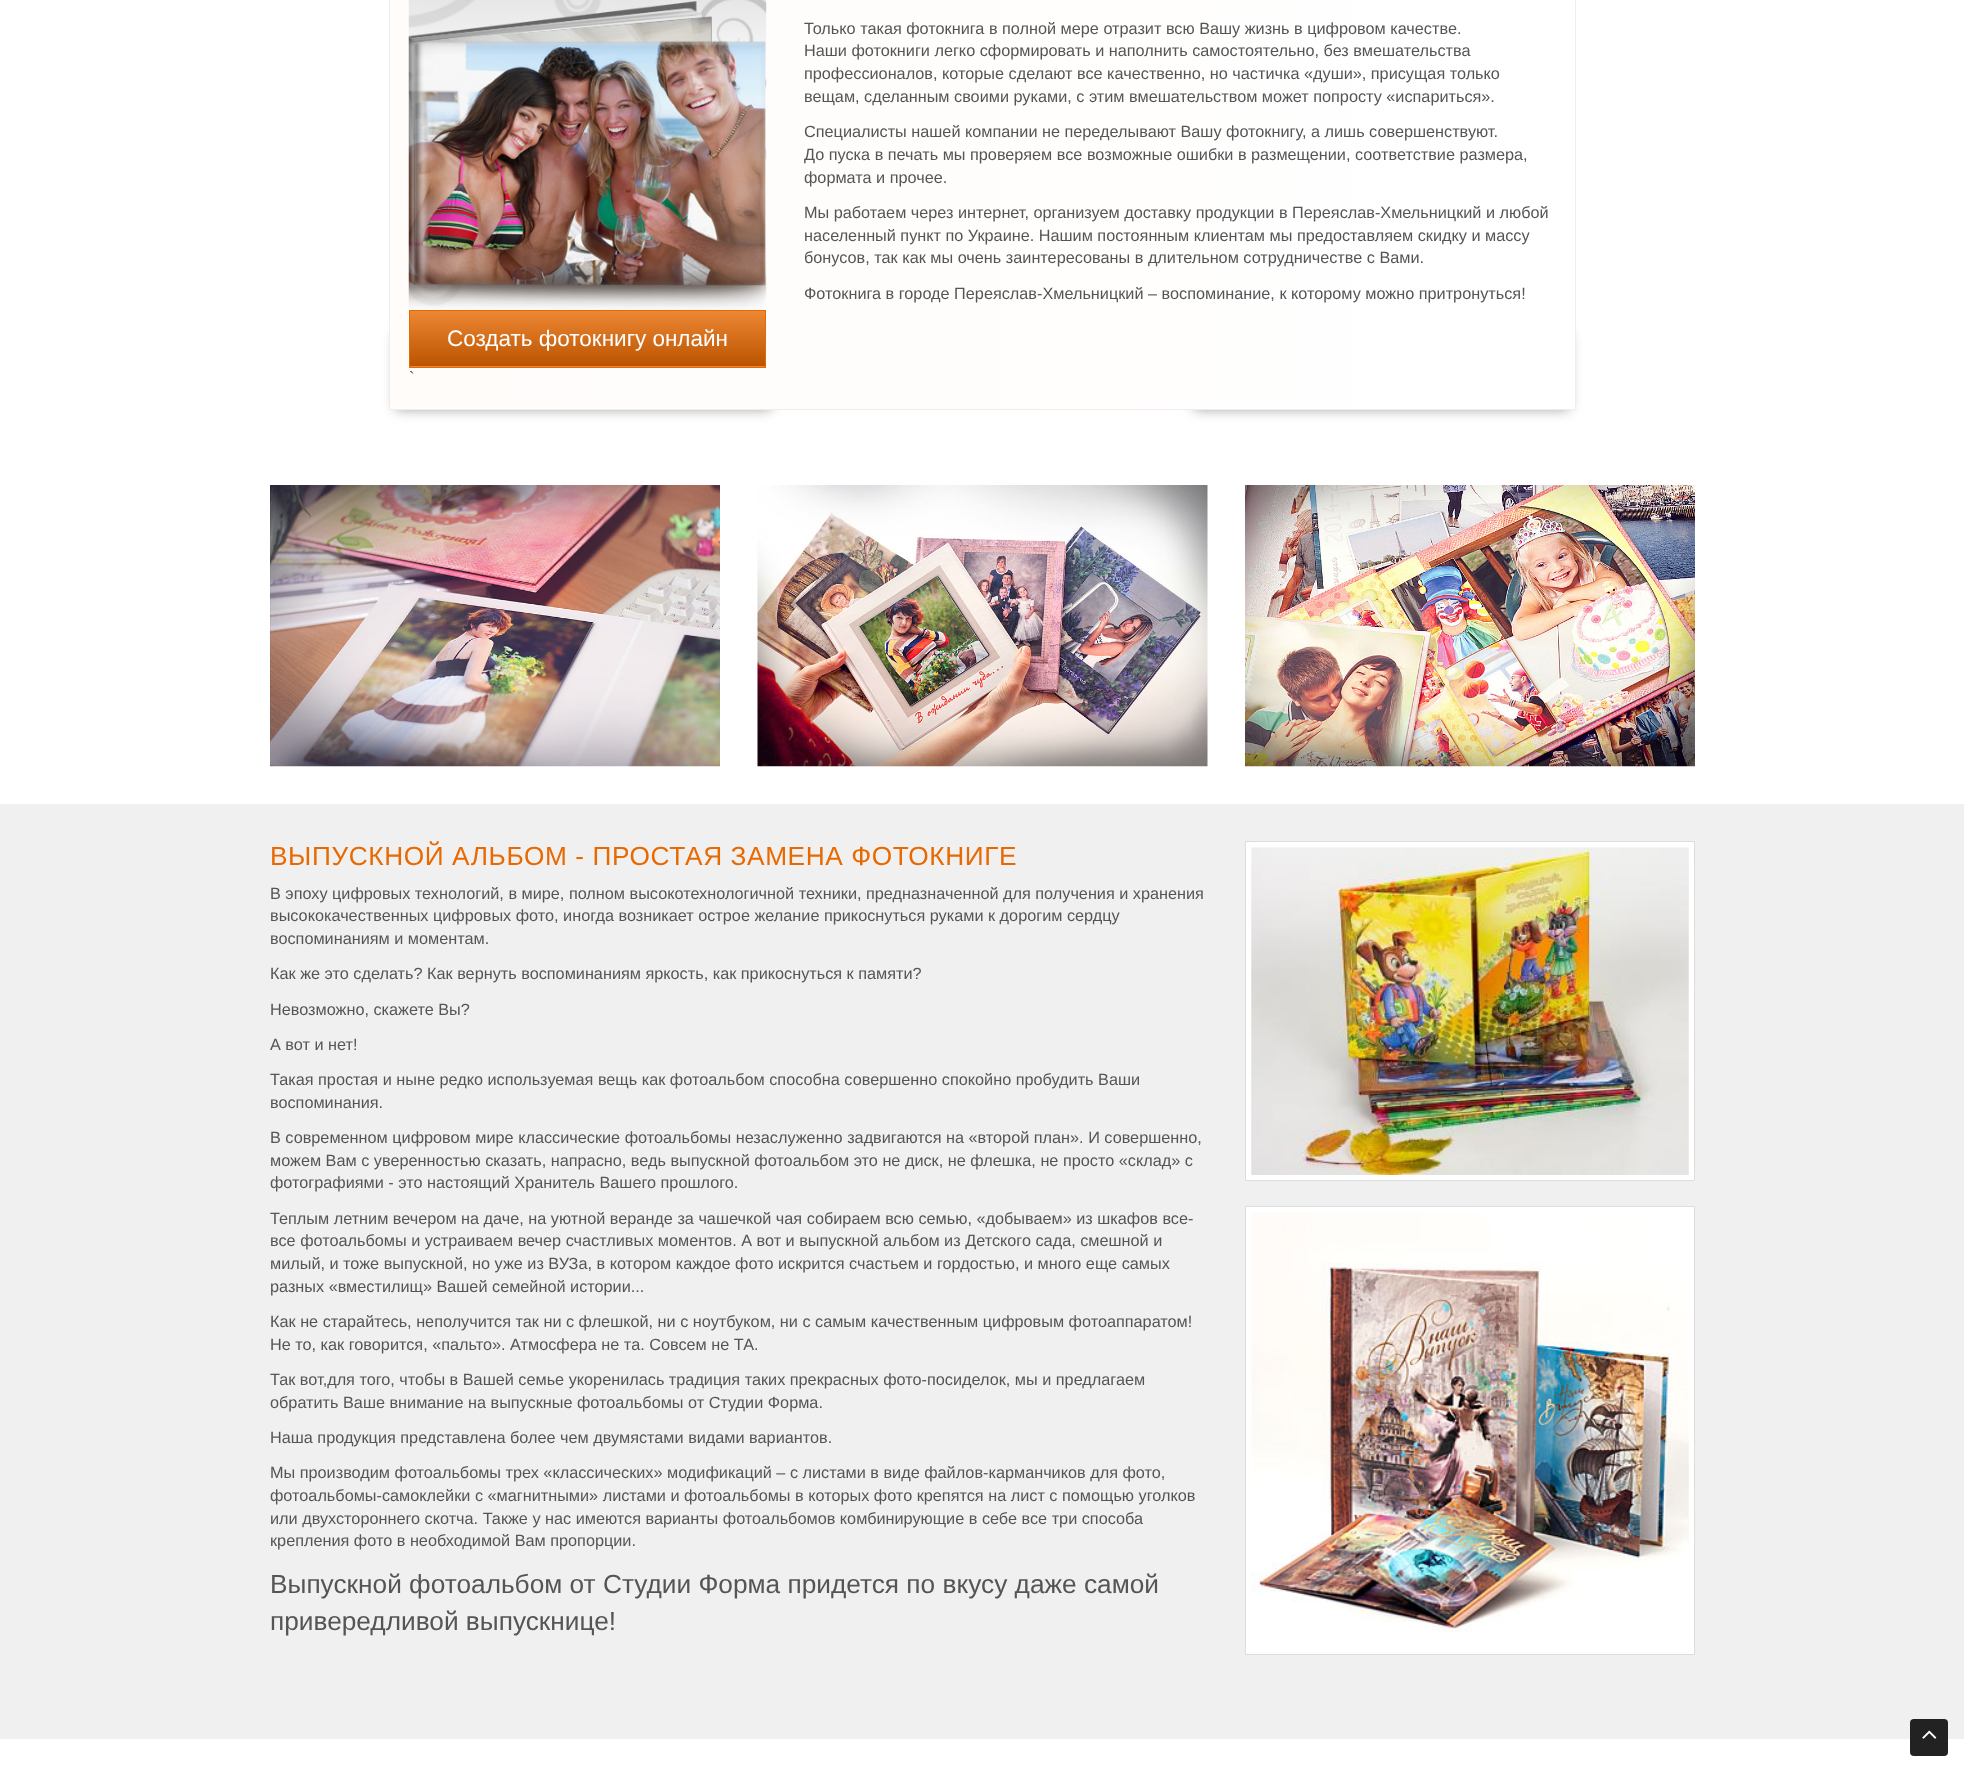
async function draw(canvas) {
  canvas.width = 1964
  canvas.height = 1769
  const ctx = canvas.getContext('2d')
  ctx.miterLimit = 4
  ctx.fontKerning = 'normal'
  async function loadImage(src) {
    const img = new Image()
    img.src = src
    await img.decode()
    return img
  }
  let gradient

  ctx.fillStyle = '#fff'
  ctx.fillRect(0, 0, 1964, 1769)
  ctx.fillStyle = '#999'
  ctx.filter = 'blur(6.5px)'
  ctx.beginPath()
  ctx.rect(396, 333, 375, 76)
  ctx.fill()
  ctx.filter = 'none'
  ctx.filter = 'blur(6.5px)'
  ctx.beginPath()
  ctx.rect(1194, 333, 375, 76)
  ctx.fill()
  ctx.filter = 'none'
  gradient = ctx.createLinearGradient(390, 171, 1575, 171)
  gradient.addColorStop(0, '#fffcfa')
  gradient.addColorStop(1, '#fff')
  ctx.fillStyle = gradient
  ctx.fillRect(390, 0, 1185, 409)
  ctx.fillStyle = '#eee'
  ctx.beginPath()
  ctx.moveTo(1576, -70)
  ctx.lineTo(1576, 410)
  ctx.lineTo(1575, 409)
  ctx.lineTo(1575, -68)
  ctx.closePath()
  ctx.fill()
  ctx.fillRect(389, 409, 1187, 1)
  ctx.beginPath()
  ctx.moveTo(389, 410)
  ctx.lineTo(389, -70)
  ctx.lineTo(390, -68)
  ctx.lineTo(390, 409)
  ctx.closePath()
  ctx.fill()
  ctx.font = '16.25px Liberation Sans'
  ctx.fillStyle = '#555'
  ctx.fillText('Только такая фотокнига в полной мере отразит всю Вашу жизнь в цифровом качестве.', 804, 34)
  ctx.fillText('Наши фотокниги легко сформировать и наполнить самостоятельно, без вмешательства', 804, 56)
  ctx.fillText('профессионалов, которые сделают все качественно, но частичка «души», присущая только', 804, 79)
  ctx.fillText('вещам, сделанным своими руками, с этим вмешательством может попросту «испариться».', 804, 102)
  ctx.fillText('Специалисты нашей компании не переделывают Вашу фотокнигу, а лишь совершенствуют.', 804, 137)
  ctx.fillText('До пуска в печать мы проверяем все возможные ошибки в размещении, соответствие размера,', 804, 160)
  ctx.fillText('формата и прочее.', 804, 183)
  ctx.fillText('Мы работаем через интернет, организуем доставку продукции в Переяслав-Хмельницкий и любой', 804, 218)
  ctx.fillText('населенный пункт по Украине. Нашим постоянным клиентам мы предоставляем скидку и массу', 804, 241)
  ctx.fillText('бонусов, так как мы очень заинтересованы в длительном сотрудничестве с Вами.', 804, 263)
  ctx.fillText('Фотокнига в городе Переяслав-Хмельницкий – воспоминание, к которому можно притронуться!', 804, 299)
  ctx.drawImage(await loadImage('image0.png'), 408, 0, 359, 310)
  gradient = ctx.createLinearGradient(588, 366, 588, 311)
  gradient.addColorStop(0, '#ba5400')
  gradient.addColorStop(1, '#ed8733')
  ctx.fillStyle = gradient
  ctx.fillRect(410, 311, 355, 55)
  gradient = ctx.createLinearGradient(588, 421, 588, 366)
  gradient.addColorStop(0, '#ba5400')
  gradient.addColorStop(1, '#ed8733')
  ctx.fillStyle = gradient
  ctx.fillRect(409, 366, 357, 1)
  ctx.strokeStyle = '#e86900'
  ctx.strokeRect(409.5, 310.5, 356, 57)
  ctx.font = '22.5px Liberation Sans'
  ctx.fillStyle = '#fff'
  ctx.fillText('Создать фотокнигу онлайн', 447, 346)
  ctx.font = '16.25px Liberation Sans'
  ctx.fillStyle = '#555'
  ctx.fillText('`', 409, 383)
  ctx.drawImage(await loadImage('image1.png'), 270, 485, 450, 282)
  ctx.drawImage(await loadImage('image2.png'), 757, 485, 451, 282)
  ctx.drawImage(await loadImage('image3.png'), 1245, 485, 450, 282)
  ctx.fillStyle = '#f0f0f0'
  ctx.fillRect(0, 804, 1964, 935)
  ctx.letterSpacing = '0.6px'
  ctx.font = '26.25px Liberation Sans'
  ctx.fillStyle = '#e86900'
  ctx.fillText('ВЫПУСКНОЙ АЛЬБОМ - ПРОСТАЯ ЗАМЕНА ФОТОКНИГЕ', 270, 865)
  ctx.letterSpacing = '0px'
  ctx.font = '16.25px Liberation Sans'
  ctx.fillStyle = '#555'
  ctx.fillText('В эпоху цифровых технологий, в мире, полном высокотехнологичной техники, предназначенной для получения и хранения', 270, 899)
  ctx.fillText('высококачественных цифровых фото, иногда возникает острое желание прикоснуться руками к дорогим сердцу', 270, 921)
  ctx.fillText('воспоминаниям и моментам.', 270, 944)
  ctx.fillText('Как же это сделать? Как вернуть воспоминаниям яркость, как прикоснуться к памяти?', 270, 979)
  ctx.fillText('Невозможно, скажете Вы?', 270, 1015)
  ctx.fillText('А вот и нет!', 270, 1050)
  ctx.fillText('Такая простая и ныне редко используемая вещь как фотоальбом способна совершенно спокойно пробудить Ваши', 270, 1085)
  ctx.fillText('воспоминания.', 270, 1108)
  ctx.fillText('В современном цифровом мире классические фотоальбомы незаслуженно задвигаются на «второй план». И совершенно,', 270, 1143)
  ctx.fillText('можем Вам с уверенностью сказать, напрасно, ведь выпускной фотоальбом это не диск, не флешка, не просто «склад» с', 270, 1166)
  ctx.fillText('фотографиями - это настоящий Хранитель Вашего прошлого.', 270, 1188)
  ctx.fillText('Теплым летним вечером на даче, на уютной веранде за чашечкой чая собираем всю семью, «добываем» из шкафов все-', 270, 1224)
  ctx.fillText('все фотоальбомы и устраиваем вечер счастливых моментов. А вот и выпускной альбом из Детского сада, смешной и', 270, 1246)
  ctx.fillText('милый, и тоже выпускной, но уже из ВУЗа, в котором каждое фото искрится счастьем и гордостью, и много еще самых', 270, 1269)
  ctx.fillText('разных «вместилищ» Вашей семейной истории...', 270, 1292)
  ctx.fillText('Как не старайтесь, неполучится так ни с флешкой, ни с ноутбуком, ни с самым качественным цифровым фотоаппаратом!', 270, 1327)
  ctx.fillText('Не то, как говорится, «пальто». Атмосфера не та. Совсем не ТА.', 270, 1350)
  ctx.fillText('Так вот,для того, чтобы в Вашей семье укоренилась традиция таких прекрасных фото-посиделок, мы и предлагаем', 270, 1385)
  ctx.fillText('обратить Ваше внимание на выпускные фотоальбомы от Студии Форма.', 270, 1408)
  ctx.fillText('Наша продукция представлена более чем двумястами видами вариантов.', 270, 1443)
  ctx.fillText('Мы производим фотоальбомы трех «классических» модификаций – с листами в виде файлов-карманчиков для фото,', 270, 1478)
  ctx.fillText('фотоальбомы-самоклейки с «магнитными» листами и фотоальбомы в которых фото крепятся на лист с помощью уголков', 270, 1501)
  ctx.fillText('или двухстороннего скотча. Также у нас имеются варианты фотоальбомов комбинирующие в себе все три способа', 270, 1524)
  ctx.fillText('крепления фото в необходимой Вам пропорции.', 270, 1546)
  ctx.font = '26.25px Liberation Sans'
  ctx.fillText('Выпускной фотоальбом от Студии Форма придется по вкусу даже самой', 270, 1593)
  ctx.fillText('привередливой выпускнице!', 270, 1630)
  ctx.fillStyle = '#fff'
  ctx.beginPath()
  ctx.rect(1245.5, 841.5, 449, 339)
  ctx.fill()
  ctx.strokeStyle = '#ddd'
  ctx.stroke()
  ctx.drawImage(await loadImage('image4.png'), 1251, 847, 438, 328)
  ctx.beginPath()
  ctx.rect(1245.5, 1206.5, 449, 448)
  ctx.fill()
  ctx.stroke()
  ctx.drawImage(await loadImage('image5.png'), 1251, 1212, 438, 421)
  ctx.fillStyle = '#222'
  ctx.beginPath()
  ctx.roundRect(1910, 1719, 38, 37, 4)
  ctx.fill()
  ctx.drawImage(await loadImage('image6.png'), 1922, 1730, 15, 9)
}

draw(document.querySelector('canvas'))
